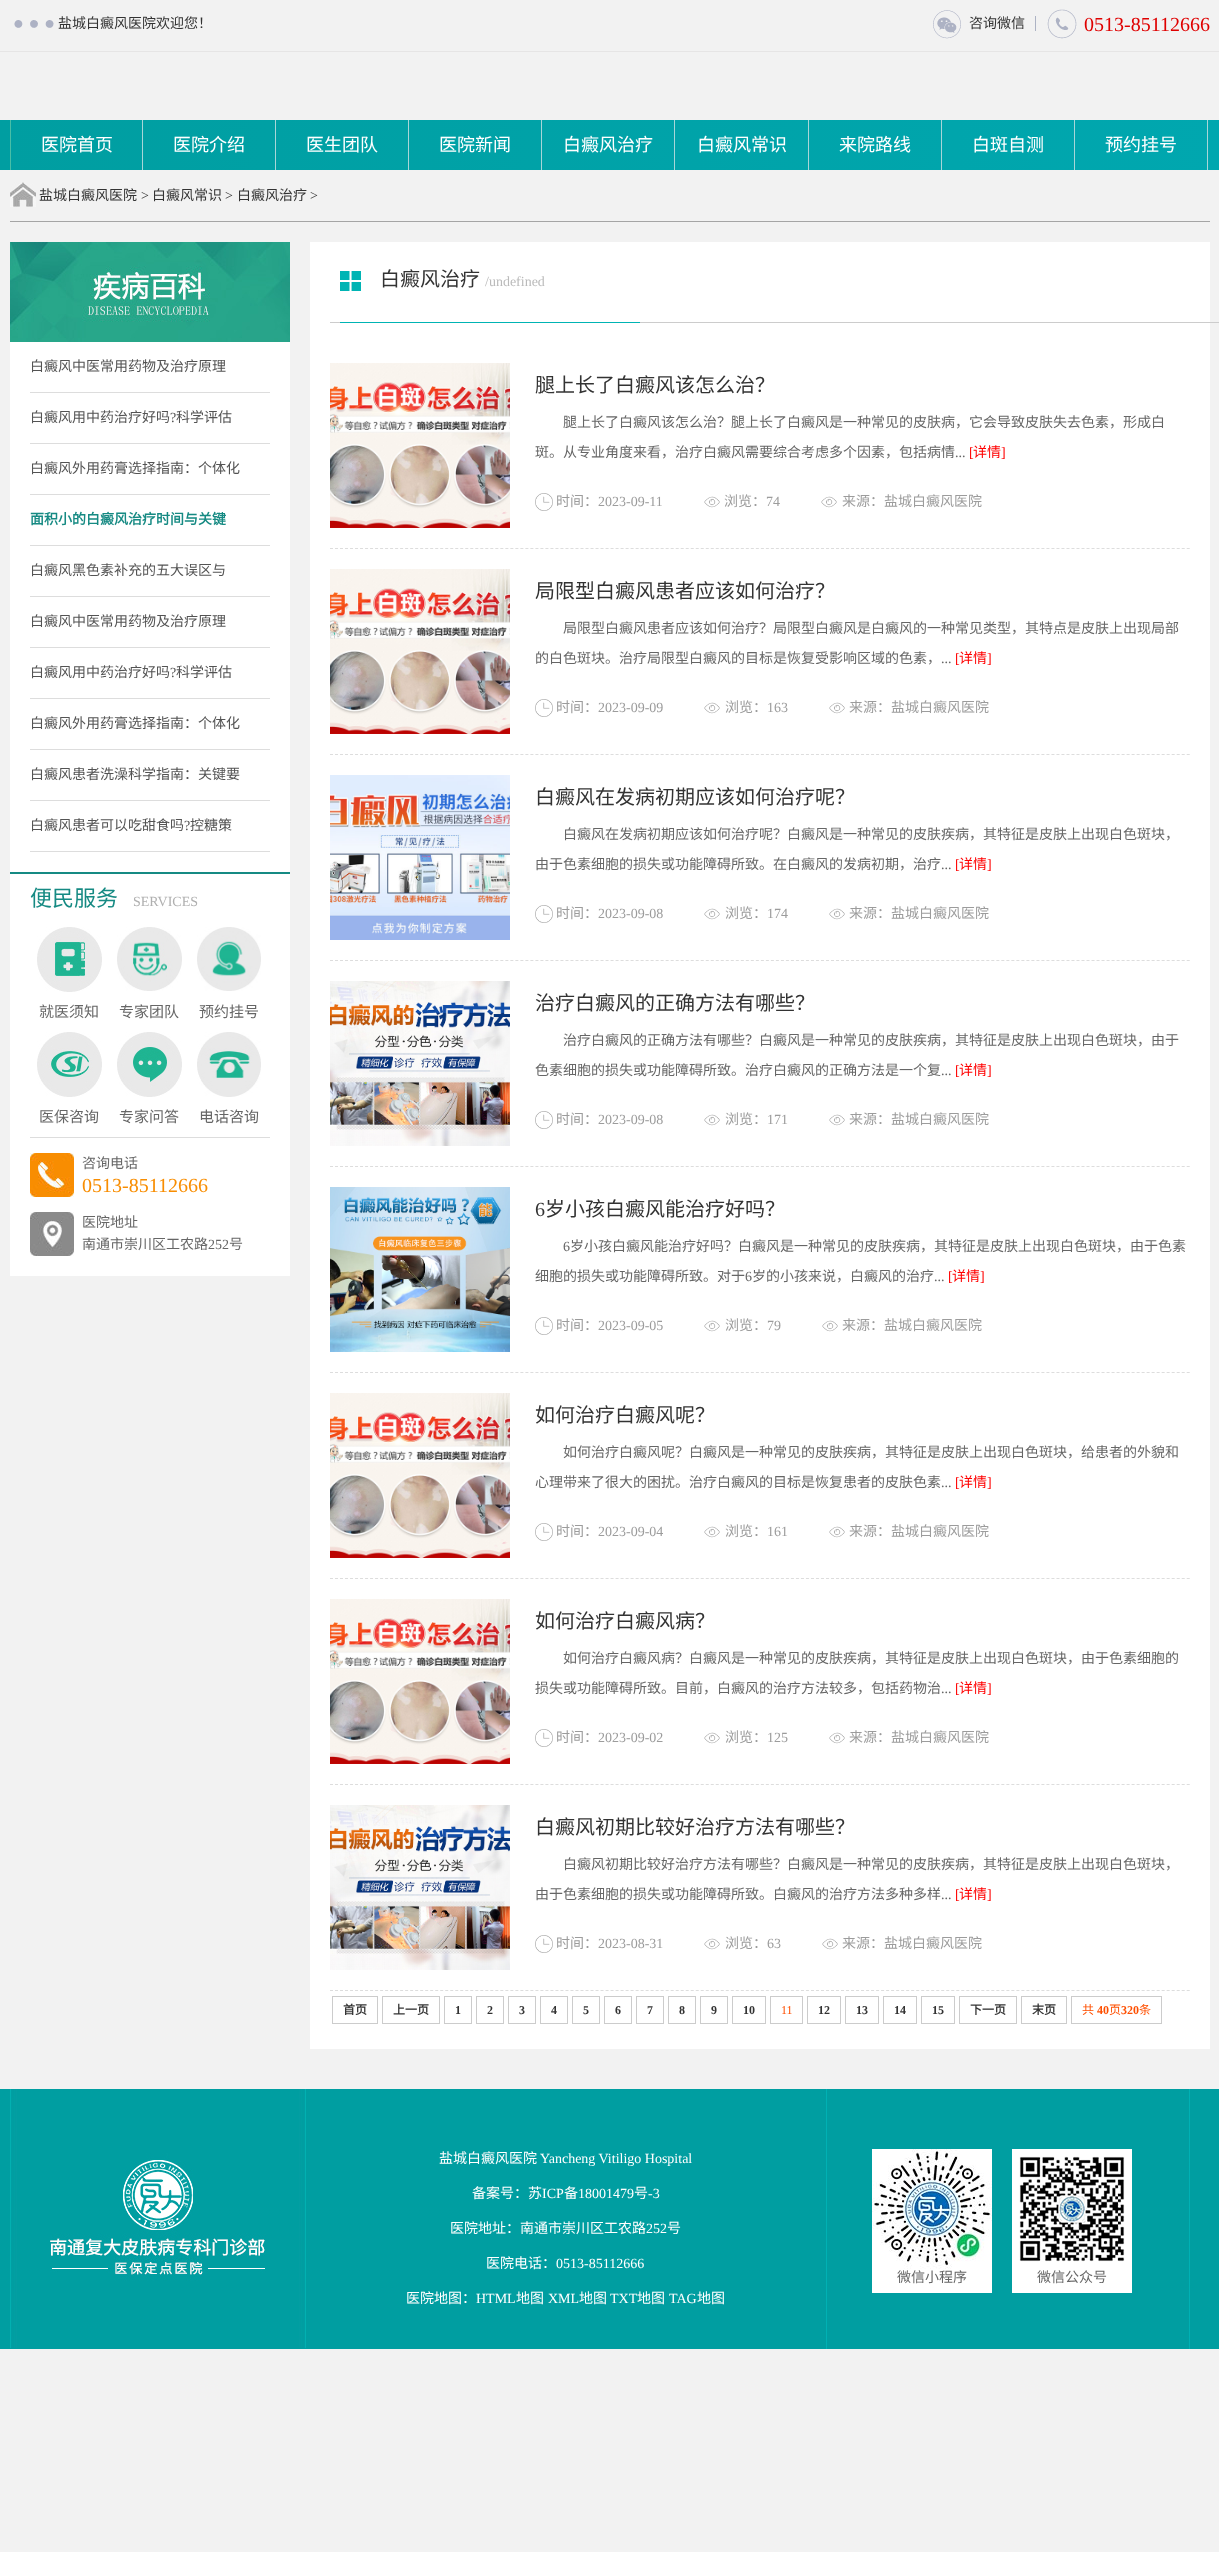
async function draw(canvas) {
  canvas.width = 1219
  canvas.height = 2552
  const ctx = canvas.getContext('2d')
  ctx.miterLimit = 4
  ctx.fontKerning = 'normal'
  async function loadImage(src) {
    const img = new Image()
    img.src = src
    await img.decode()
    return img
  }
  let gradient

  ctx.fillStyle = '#f2f2f2'
  ctx.fillRect(0, 0, 1219, 2552)
  ctx.drawImage(await loadImage('image0.png'), 14, 20, 40, 8)
  ctx.font = '14px Noto Sans CJK SC'
  ctx.fillStyle = '#333'
  ctx.fillText('盐城白癜风医院欢迎您！', 58, 28)
  ctx.drawImage(await loadImage('image1.png'), 933, 10, 28, 29)
  ctx.fillText('咨询微信', 969, 28)
  ctx.fillStyle = '#adb3c4'
  ctx.fillRect(1035, 16, 1, 15)
  ctx.drawImage(await loadImage('image2.png'), 1047, 9, 30, 30)
  ctx.font = '20px Liberation Serif'
  ctx.fillStyle = '#df0000'
  ctx.fillText('0513-85112666', 1084, 31)
  ctx.fillStyle = '#e6e5e5'
  ctx.fillRect(0, 51, 1219, 1)
  gradient = ctx.createLinearGradient(0, 145, 1219, 145)
  gradient.addColorStop(0, '#009ea1')
  gradient.addColorStop(1, '#00a7af')
  ctx.fillStyle = gradient
  ctx.fillRect(0, 120, 1219, 50)
  ctx.fillStyle = '#a8d6d8'
  ctx.fillRect(142, 120, 1, 50)
  ctx.fillStyle = '#49bea7'
  ctx.fillRect(10, 120, 1, 50)
  ctx.font = '18px Noto Sans CJK SC'
  ctx.fillStyle = '#fff'
  ctx.fillText('医院首页', 41, 151)
  ctx.fillStyle = '#a8d6d8'
  ctx.fillRect(275, 120, 1, 50)
  ctx.fillStyle = '#fff'
  ctx.fillText('医院介绍', 173, 151)
  ctx.fillStyle = '#a8d6d8'
  ctx.fillRect(408, 120, 1, 50)
  ctx.fillStyle = '#fff'
  ctx.fillText('医生团队', 306, 151)
  ctx.fillStyle = '#a8d6d8'
  ctx.fillRect(541, 120, 1, 50)
  ctx.fillStyle = '#fff'
  ctx.fillText('医院新闻', 439, 151)
  ctx.fillStyle = '#a8d6d8'
  ctx.fillRect(674, 120, 1, 50)
  ctx.fillStyle = '#fff'
  ctx.fillText('白癜风治疗', 563, 151)
  ctx.fillStyle = '#a8d6d8'
  ctx.fillRect(808, 120, 1, 50)
  ctx.fillStyle = '#fff'
  ctx.fillText('白癜风常识', 697, 151)
  ctx.fillStyle = '#a8d6d8'
  ctx.fillRect(941, 120, 1, 50)
  ctx.fillStyle = '#fff'
  ctx.fillText('来院路线', 839, 151)
  ctx.fillStyle = '#a8d6d8'
  ctx.fillRect(1074, 120, 1, 50)
  ctx.fillStyle = '#fff'
  ctx.fillText('白斑自测', 972, 151)
  ctx.fillStyle = '#a8d6d8'
  ctx.fillRect(1207, 120, 1, 50)
  ctx.fillStyle = '#fff'
  ctx.fillText('预约挂号', 1105, 151)
  ctx.fillStyle = '#a5a5a5'
  ctx.fillRect(10, 221, 1200, 1)
  ctx.drawImage(await loadImage('image3.png'), 10, 182, 26, 25)
  ctx.font = '14px Noto Sans CJK SC'
  ctx.fillStyle = '#333'
  ctx.fillText('盐城白癜风医院', 39, 200)
  ctx.font = '14px Liberation Serif'
  ctx.fillText('>', 141, 200)
  ctx.font = '14px Noto Sans CJK SC'
  ctx.fillText('白癜风常识', 152, 200)
  ctx.font = '14px Liberation Serif'
  ctx.fillText('>', 225, 200)
  ctx.font = '14px Noto Sans CJK SC'
  ctx.fillText('白癜风治疗', 237, 200)
  ctx.font = '14px Liberation Serif'
  ctx.fillText('>', 310, 200)
  ctx.fillStyle = '#fff'
  ctx.fillRect(10, 342, 280, 934)
  ctx.drawImage(await loadImage('image4.png'), 10, 242, 280, 100)
  ctx.fillStyle = '#ddd'
  ctx.fillRect(30, 392, 240, 1)
  ctx.font = '14px Noto Sans CJK SC'
  ctx.fillStyle = '#535353'
  ctx.fillText('白癜风中医常用药物及治疗原理', 30, 371)
  ctx.fillStyle = '#ddd'
  ctx.fillRect(30, 443, 240, 1)
  ctx.fillStyle = '#535353'
  ctx.fillText('白癜风用中药治疗好吗', 30, 422)
  ctx.font = '14px Liberation Serif'
  ctx.fillText('?', 170, 422)
  ctx.font = '14px Noto Sans CJK SC'
  ctx.fillText('科学评估', 176, 422)
  ctx.fillStyle = '#ddd'
  ctx.fillRect(30, 494, 240, 1)
  ctx.fillStyle = '#535353'
  ctx.fillText('白癜风外用药膏选择指南：个体化', 30, 473)
  ctx.fillStyle = '#ddd'
  ctx.fillRect(30, 545, 240, 1)
  ctx.font = 'bold 14px Noto Sans CJK SC'
  ctx.fillStyle = '#168a83'
  ctx.fillText('面积小的白癜风治疗时间与关键', 30, 524)
  ctx.fillStyle = '#ddd'
  ctx.fillRect(30, 596, 240, 1)
  ctx.font = '14px Noto Sans CJK SC'
  ctx.fillStyle = '#535353'
  ctx.fillText('白癜风黑色素补充的五大误区与', 30, 575)
  ctx.fillStyle = '#ddd'
  ctx.fillRect(30, 647, 240, 1)
  ctx.fillStyle = '#535353'
  ctx.fillText('白癜风中医常用药物及治疗原理', 30, 626)
  ctx.fillStyle = '#ddd'
  ctx.fillRect(30, 698, 240, 1)
  ctx.fillStyle = '#535353'
  ctx.fillText('白癜风用中药治疗好吗', 30, 677)
  ctx.font = '14px Liberation Serif'
  ctx.fillText('?', 170, 677)
  ctx.font = '14px Noto Sans CJK SC'
  ctx.fillText('科学评估', 176, 677)
  ctx.fillStyle = '#ddd'
  ctx.fillRect(30, 749, 240, 1)
  ctx.fillStyle = '#535353'
  ctx.fillText('白癜风外用药膏选择指南：个体化', 30, 728)
  ctx.fillStyle = '#ddd'
  ctx.fillRect(30, 800, 240, 1)
  ctx.fillStyle = '#535353'
  ctx.fillText('白癜风患者洗澡科学指南：关键要', 30, 779)
  ctx.fillStyle = '#ddd'
  ctx.fillRect(30, 851, 240, 1)
  ctx.fillStyle = '#535353'
  ctx.fillText('白癜风患者可以吃甜食吗', 30, 830)
  ctx.font = '14px Liberation Serif'
  ctx.fillText('?', 184, 830)
  ctx.font = '14px Noto Sans CJK SC'
  ctx.fillText('控糖策', 190, 830)
  ctx.fillStyle = '#158a83'
  ctx.fillRect(10, 872, 280, 2)
  ctx.font = '22px Noto Sans CJK SC'
  ctx.fillStyle = '#168a83'
  ctx.fillText('便民服务', 30, 906)
  ctx.font = '14px Liberation Serif'
  ctx.fillStyle = '#b0b0b0'
  ctx.fillText('SERVICES', 133, 906)
  ctx.fillStyle = '#ddd'
  ctx.fillRect(30, 1137, 240, 1)
  ctx.drawImage(await loadImage('image5.png'), 37, 927, 65, 65)
  ctx.font = '15px Noto Sans CJK SC'
  ctx.fillStyle = '#666'
  ctx.fillText('就医须知', 39, 1017)
  ctx.drawImage(await loadImage('image6.png'), 117, 927, 65, 64)
  ctx.fillText('专家团队', 119, 1017)
  ctx.drawImage(await loadImage('image7.png'), 197, 927, 64, 64)
  ctx.fillText('预约挂号', 199, 1017)
  ctx.drawImage(await loadImage('image8.png'), 37, 1032, 65, 65)
  ctx.fillText('医保咨询', 39, 1122)
  ctx.drawImage(await loadImage('image9.png'), 117, 1032, 65, 65)
  ctx.fillText('专家问答', 119, 1122)
  ctx.drawImage(await loadImage('image10.png'), 197, 1032, 64, 65)
  ctx.fillText('电话咨询', 199, 1122)
  ctx.drawImage(await loadImage('image11.png'), 30, 1153, 44, 44)
  ctx.font = '14px Noto Sans CJK SC'
  ctx.fillText('咨询电话', 82, 1168)
  ctx.font = '20px Liberation Serif'
  ctx.fillStyle = '#f88d01'
  ctx.fillText('0513-85112666', 82, 1192)
  ctx.drawImage(await loadImage('image12.png'), 30, 1212, 44, 44)
  ctx.font = '14px Noto Sans CJK SC'
  ctx.fillStyle = '#666'
  ctx.fillText('医院地址', 82, 1227)
  ctx.fillText('南通市崇川区工农路', 82, 1249)
  ctx.font = '14px Liberation Serif'
  ctx.fillText('252', 208, 1249)
  ctx.font = '14px Noto Sans CJK SC'
  ctx.fillText('号', 229, 1249)
  ctx.fillStyle = '#fff'
  ctx.fillRect(310, 242, 900, 1807)
  ctx.fillStyle = '#ccc'
  ctx.fillRect(330, 322, 889, 1)
  ctx.fillStyle = '#00b4b4'
  ctx.fillRect(340, 322, 300, 1)
  ctx.drawImage(await loadImage('image13.png'), 340, 271, 21, 20)
  ctx.font = '20px Noto Sans CJK SC'
  ctx.fillStyle = '#333'
  ctx.fillText('白癜风治疗', 380, 286)
  ctx.font = '14px Liberation Serif'
  ctx.fillStyle = '#bababa'
  ctx.fillText('/undefined', 485, 286)
  ctx.beginPath()
  ctx.moveTo(330, 548.5)
  ctx.lineTo(1190, 548.5)
  ctx.strokeStyle = '#ddd'
  ctx.setLineDash([3, 2.01])
  ctx.stroke()
  ctx.drawImage(await loadImage('image14.png'), 330, 363, 180, 165)
  ctx.font = '20px Noto Sans CJK SC'
  ctx.fillStyle = '#333'
  ctx.fillText('腿上长了白癜风该怎么治？', 535, 392)
  ctx.font = '14px Noto Sans CJK SC'
  ctx.fillStyle = '#666'
  ctx.fillText('腿上长了白癜风该怎么治？腿上长了白癜风是一种常见的皮肤病，它会导致皮肤失去色素，形成白', 563, 427)
  ctx.fillText('斑。从专业角度来看，治疗白癜风需要综合考虑多个因素，包括病情', 535, 457)
  ctx.font = '14px Liberation Serif'
  ctx.fillText('...', 955, 457)
  ctx.fillStyle = '#f00'
  ctx.fillText('[', 969, 457)
  ctx.font = '14px Noto Sans CJK SC'
  ctx.fillText('详情', 973, 457)
  ctx.font = '14px Liberation Serif'
  ctx.fillText(']', 1001, 457)
  ctx.drawImage(await loadImage('image15.png'), 535, 493, 18, 18)
  ctx.font = '14px Noto Sans CJK SC'
  ctx.fillStyle = '#9c9c9c'
  ctx.fillText('时间：', 556, 506)
  ctx.font = '14px Liberation Serif'
  ctx.fillText('2023-09-11', 598, 506)
  ctx.drawImage(await loadImage('image16.png'), 704, 496, 16, 12)
  ctx.font = '14px Noto Sans CJK SC'
  ctx.fillText('浏览：', 724, 506)
  ctx.font = '14px Liberation Serif'
  ctx.fillText('74', 766, 506)
  ctx.drawImage(await loadImage('image17.png'), 821, 496, 16, 12)
  ctx.font = '14px Noto Sans CJK SC'
  ctx.fillText('来源：盐城白癜风医院', 842, 506)
  ctx.beginPath()
  ctx.moveTo(330, 754.5)
  ctx.lineTo(1190, 754.5)
  ctx.stroke()
  ctx.drawImage(await loadImage('image14.png'), 330, 569, 180, 165)
  ctx.font = '20px Noto Sans CJK SC'
  ctx.fillStyle = '#333'
  ctx.fillText('局限型白癜风患者应该如何治疗？', 535, 598)
  ctx.font = '14px Noto Sans CJK SC'
  ctx.fillStyle = '#666'
  ctx.fillText('局限型白癜风患者应该如何治疗？局限型白癜风是白癜风的一种常见类型，其特点是皮肤上出现局部', 563, 633)
  ctx.fillText('的白色斑块。治疗局限型白癜风的目标是恢复受影响区域的色素，', 535, 663)
  ctx.font = '14px Liberation Serif'
  ctx.fillText('...', 941, 663)
  ctx.fillStyle = '#f00'
  ctx.fillText('[', 955, 663)
  ctx.font = '14px Noto Sans CJK SC'
  ctx.fillText('详情', 959, 663)
  ctx.font = '14px Liberation Serif'
  ctx.fillText(']', 987, 663)
  ctx.drawImage(await loadImage('image15.png'), 535, 699, 18, 18)
  ctx.font = '14px Noto Sans CJK SC'
  ctx.fillStyle = '#9c9c9c'
  ctx.fillText('时间：', 556, 712)
  ctx.font = '14px Liberation Serif'
  ctx.fillText('2023-09-09', 598, 712)
  ctx.drawImage(await loadImage('image16.png'), 704, 702, 16, 12)
  ctx.font = '14px Noto Sans CJK SC'
  ctx.fillText('浏览：', 725, 712)
  ctx.font = '14px Liberation Serif'
  ctx.fillText('163', 767, 712)
  ctx.drawImage(await loadImage('image17.png'), 829, 702, 16, 12)
  ctx.font = '14px Noto Sans CJK SC'
  ctx.fillText('来源：盐城白癜风医院', 849, 712)
  ctx.beginPath()
  ctx.moveTo(330, 960.5)
  ctx.lineTo(1190, 960.5)
  ctx.stroke()
  ctx.drawImage(await loadImage('image18.png'), 330, 775, 180, 165)
  ctx.font = '20px Noto Sans CJK SC'
  ctx.fillStyle = '#333'
  ctx.fillText('白癜风在发病初期应该如何治疗呢？', 535, 804)
  ctx.font = '14px Noto Sans CJK SC'
  ctx.fillStyle = '#666'
  ctx.fillText('白癜风在发病初期应该如何治疗呢？白癜风是一种常见的皮肤疾病，其特征是皮肤上出现白色斑块，', 563, 839)
  ctx.fillText('由于色素细胞的损失或功能障碍所致。在白癜风的发病初期，治疗', 535, 869)
  ctx.font = '14px Liberation Serif'
  ctx.fillText('...', 941, 869)
  ctx.fillStyle = '#f00'
  ctx.fillText('[', 955, 869)
  ctx.font = '14px Noto Sans CJK SC'
  ctx.fillText('详情', 959, 869)
  ctx.font = '14px Liberation Serif'
  ctx.fillText(']', 987, 869)
  ctx.drawImage(await loadImage('image15.png'), 535, 905, 18, 18)
  ctx.font = '14px Noto Sans CJK SC'
  ctx.fillStyle = '#9c9c9c'
  ctx.fillText('时间：', 556, 918)
  ctx.font = '14px Liberation Serif'
  ctx.fillText('2023-09-08', 598, 918)
  ctx.drawImage(await loadImage('image16.png'), 704, 908, 16, 12)
  ctx.font = '14px Noto Sans CJK SC'
  ctx.fillText('浏览：', 725, 918)
  ctx.font = '14px Liberation Serif'
  ctx.fillText('174', 767, 918)
  ctx.drawImage(await loadImage('image17.png'), 829, 908, 16, 12)
  ctx.font = '14px Noto Sans CJK SC'
  ctx.fillText('来源：盐城白癜风医院', 849, 918)
  ctx.beginPath()
  ctx.moveTo(330, 1166.5)
  ctx.lineTo(1190, 1166.5)
  ctx.stroke()
  ctx.drawImage(await loadImage('image19.png'), 330, 981, 180, 165)
  ctx.font = '20px Noto Sans CJK SC'
  ctx.fillStyle = '#333'
  ctx.fillText('治疗白癜风的正确方法有哪些？', 535, 1010)
  ctx.font = '14px Noto Sans CJK SC'
  ctx.fillStyle = '#666'
  ctx.fillText('治疗白癜风的正确方法有哪些？白癜风是一种常见的皮肤疾病，其特征是皮肤上出现白色斑块，由于', 563, 1045)
  ctx.fillText('色素细胞的损失或功能障碍所致。治疗白癜风的正确方法是一个复', 535, 1075)
  ctx.font = '14px Liberation Serif'
  ctx.fillText('...', 941, 1075)
  ctx.fillStyle = '#f00'
  ctx.fillText('[', 955, 1075)
  ctx.font = '14px Noto Sans CJK SC'
  ctx.fillText('详情', 959, 1075)
  ctx.font = '14px Liberation Serif'
  ctx.fillText(']', 987, 1075)
  ctx.drawImage(await loadImage('image15.png'), 535, 1111, 18, 18)
  ctx.font = '14px Noto Sans CJK SC'
  ctx.fillStyle = '#9c9c9c'
  ctx.fillText('时间：', 556, 1124)
  ctx.font = '14px Liberation Serif'
  ctx.fillText('2023-09-08', 598, 1124)
  ctx.drawImage(await loadImage('image16.png'), 704, 1114, 16, 12)
  ctx.font = '14px Noto Sans CJK SC'
  ctx.fillText('浏览：', 725, 1124)
  ctx.font = '14px Liberation Serif'
  ctx.fillText('171', 767, 1124)
  ctx.drawImage(await loadImage('image17.png'), 829, 1114, 16, 12)
  ctx.font = '14px Noto Sans CJK SC'
  ctx.fillText('来源：盐城白癜风医院', 849, 1124)
  ctx.beginPath()
  ctx.moveTo(330, 1372.5)
  ctx.lineTo(1190, 1372.5)
  ctx.stroke()
  ctx.drawImage(await loadImage('image20.png'), 330, 1187, 180, 165)
  ctx.font = '20px Liberation Serif'
  ctx.fillStyle = '#333'
  ctx.fillText('6', 535, 1216)
  ctx.font = '20px Noto Sans CJK SC'
  ctx.fillText('岁小孩白癜风能治疗好吗？', 545, 1216)
  ctx.font = '14px Liberation Serif'
  ctx.fillStyle = '#666'
  ctx.fillText('6', 563, 1251)
  ctx.font = '14px Noto Sans CJK SC'
  ctx.fillText('岁小孩白癜风能治疗好吗？白癜风是一种常见的皮肤疾病，其特征是皮肤上出现白色斑块，由于色素', 570, 1251)
  ctx.fillText('细胞的损失或功能障碍所致。对于', 535, 1281)
  ctx.font = '14px Liberation Serif'
  ctx.fillText('6', 745, 1281)
  ctx.font = '14px Noto Sans CJK SC'
  ctx.fillText('岁的小孩来说，白癜风的治疗', 752, 1281)
  ctx.font = '14px Liberation Serif'
  ctx.fillText('...', 934, 1281)
  ctx.fillStyle = '#f00'
  ctx.fillText('[', 948, 1281)
  ctx.font = '14px Noto Sans CJK SC'
  ctx.fillText('详情', 952, 1281)
  ctx.font = '14px Liberation Serif'
  ctx.fillText(']', 980, 1281)
  ctx.drawImage(await loadImage('image15.png'), 535, 1317, 18, 18)
  ctx.font = '14px Noto Sans CJK SC'
  ctx.fillStyle = '#9c9c9c'
  ctx.fillText('时间：', 556, 1330)
  ctx.font = '14px Liberation Serif'
  ctx.fillText('2023-09-05', 598, 1330)
  ctx.drawImage(await loadImage('image16.png'), 704, 1320, 16, 12)
  ctx.font = '14px Noto Sans CJK SC'
  ctx.fillText('浏览：', 725, 1330)
  ctx.font = '14px Liberation Serif'
  ctx.fillText('79', 767, 1330)
  ctx.drawImage(await loadImage('image17.png'), 822, 1320, 16, 12)
  ctx.font = '14px Noto Sans CJK SC'
  ctx.fillText('来源：盐城白癜风医院', 842, 1330)
  ctx.beginPath()
  ctx.moveTo(330, 1578.5)
  ctx.lineTo(1190, 1578.5)
  ctx.stroke()
  ctx.drawImage(await loadImage('image14.png'), 330, 1393, 180, 165)
  ctx.font = '20px Noto Sans CJK SC'
  ctx.fillStyle = '#333'
  ctx.fillText('如何治疗白癜风呢？', 535, 1422)
  ctx.font = '14px Noto Sans CJK SC'
  ctx.fillStyle = '#666'
  ctx.fillText('如何治疗白癜风呢？白癜风是一种常见的皮肤疾病，其特征是皮肤上出现白色斑块，给患者的外貌和', 563, 1457)
  ctx.fillText('心理带来了很大的困扰。治疗白癜风的目标是恢复患者的皮肤色素', 535, 1487)
  ctx.font = '14px Liberation Serif'
  ctx.fillText('...', 941, 1487)
  ctx.fillStyle = '#f00'
  ctx.fillText('[', 955, 1487)
  ctx.font = '14px Noto Sans CJK SC'
  ctx.fillText('详情', 959, 1487)
  ctx.font = '14px Liberation Serif'
  ctx.fillText(']', 987, 1487)
  ctx.drawImage(await loadImage('image15.png'), 535, 1523, 18, 18)
  ctx.font = '14px Noto Sans CJK SC'
  ctx.fillStyle = '#9c9c9c'
  ctx.fillText('时间：', 556, 1536)
  ctx.font = '14px Liberation Serif'
  ctx.fillText('2023-09-04', 598, 1536)
  ctx.drawImage(await loadImage('image16.png'), 704, 1526, 16, 12)
  ctx.font = '14px Noto Sans CJK SC'
  ctx.fillText('浏览：', 725, 1536)
  ctx.font = '14px Liberation Serif'
  ctx.fillText('161', 767, 1536)
  ctx.drawImage(await loadImage('image17.png'), 829, 1526, 16, 12)
  ctx.font = '14px Noto Sans CJK SC'
  ctx.fillText('来源：盐城白癜风医院', 849, 1536)
  ctx.beginPath()
  ctx.moveTo(330, 1784.5)
  ctx.lineTo(1190, 1784.5)
  ctx.stroke()
  ctx.drawImage(await loadImage('image14.png'), 330, 1599, 180, 165)
  ctx.font = '20px Noto Sans CJK SC'
  ctx.fillStyle = '#333'
  ctx.fillText('如何治疗白癜风病？', 535, 1628)
  ctx.font = '14px Noto Sans CJK SC'
  ctx.fillStyle = '#666'
  ctx.fillText('如何治疗白癜风病？白癜风是一种常见的皮肤疾病，其特征是皮肤上出现白色斑块，由于色素细胞的', 563, 1663)
  ctx.fillText('损失或功能障碍所致。目前，白癜风的治疗方法较多，包括药物治', 535, 1693)
  ctx.font = '14px Liberation Serif'
  ctx.fillText('...', 941, 1693)
  ctx.fillStyle = '#f00'
  ctx.fillText('[', 955, 1693)
  ctx.font = '14px Noto Sans CJK SC'
  ctx.fillText('详情', 959, 1693)
  ctx.font = '14px Liberation Serif'
  ctx.fillText(']', 987, 1693)
  ctx.drawImage(await loadImage('image15.png'), 535, 1729, 18, 18)
  ctx.font = '14px Noto Sans CJK SC'
  ctx.fillStyle = '#9c9c9c'
  ctx.fillText('时间：', 556, 1742)
  ctx.font = '14px Liberation Serif'
  ctx.fillText('2023-09-02', 598, 1742)
  ctx.drawImage(await loadImage('image16.png'), 704, 1732, 16, 12)
  ctx.font = '14px Noto Sans CJK SC'
  ctx.fillText('浏览：', 725, 1742)
  ctx.font = '14px Liberation Serif'
  ctx.fillText('125', 767, 1742)
  ctx.drawImage(await loadImage('image17.png'), 829, 1732, 16, 12)
  ctx.font = '14px Noto Sans CJK SC'
  ctx.fillText('来源：盐城白癜风医院', 849, 1742)
  ctx.beginPath()
  ctx.moveTo(330, 1990.5)
  ctx.lineTo(1190, 1990.5)
  ctx.stroke()
  ctx.drawImage(await loadImage('image19.png'), 330, 1805, 180, 165)
  ctx.font = '20px Noto Sans CJK SC'
  ctx.fillStyle = '#333'
  ctx.fillText('白癜风初期比较好治疗方法有哪些？', 535, 1834)
  ctx.font = '14px Noto Sans CJK SC'
  ctx.fillStyle = '#666'
  ctx.fillText('白癜风初期比较好治疗方法有哪些？白癜风是一种常见的皮肤疾病，其特征是皮肤上出现白色斑块，', 563, 1869)
  ctx.fillText('由于色素细胞的损失或功能障碍所致。白癜风的治疗方法多种多样', 535, 1899)
  ctx.font = '14px Liberation Serif'
  ctx.fillText('...', 941, 1899)
  ctx.fillStyle = '#f00'
  ctx.fillText('[', 955, 1899)
  ctx.font = '14px Noto Sans CJK SC'
  ctx.fillText('详情', 959, 1899)
  ctx.font = '14px Liberation Serif'
  ctx.fillText(']', 987, 1899)
  ctx.drawImage(await loadImage('image15.png'), 535, 1935, 18, 18)
  ctx.font = '14px Noto Sans CJK SC'
  ctx.fillStyle = '#9c9c9c'
  ctx.fillText('时间：', 556, 1948)
  ctx.font = '14px Liberation Serif'
  ctx.fillText('2023-08-31', 598, 1948)
  ctx.drawImage(await loadImage('image16.png'), 704, 1938, 16, 12)
  ctx.font = '14px Noto Sans CJK SC'
  ctx.fillText('浏览：', 725, 1948)
  ctx.font = '14px Liberation Serif'
  ctx.fillText('63', 767, 1948)
  ctx.drawImage(await loadImage('image17.png'), 822, 1938, 16, 12)
  ctx.font = '14px Noto Sans CJK SC'
  ctx.fillText('来源：盐城白癜风医院', 842, 1948)
  ctx.strokeStyle = '#ccc'
  ctx.setLineDash([])
  ctx.strokeRect(332.5, 1996.5, 45, 27)
  ctx.font = 'bold 12px Noto Sans CJK SC'
  ctx.fillStyle = '#333'
  ctx.fillText('首页', 343, 2014)
  ctx.strokeRect(382.5, 1996.5, 57, 27)
  ctx.fillText('上一页', 393, 2014)
  ctx.strokeRect(444.5, 1996.5, 27, 27)
  ctx.font = 'bold 12px Liberation Serif'
  ctx.fillText('1', 455, 2014)
  ctx.strokeRect(476.5, 1996.5, 27, 27)
  ctx.fillText('2', 487, 2014)
  ctx.strokeRect(508.5, 1996.5, 27, 27)
  ctx.fillText('3', 519, 2014)
  ctx.strokeRect(540.5, 1996.5, 27, 27)
  ctx.fillText('4', 551, 2014)
  ctx.strokeRect(572.5, 1996.5, 27, 27)
  ctx.fillText('5', 583, 2014)
  ctx.strokeRect(604.5, 1996.5, 27, 27)
  ctx.fillText('6', 615, 2014)
  ctx.strokeRect(636.5, 1996.5, 27, 27)
  ctx.fillText('7', 647, 2014)
  ctx.strokeRect(668.5, 1996.5, 27, 27)
  ctx.fillText('8', 679, 2014)
  ctx.strokeRect(700.5, 1996.5, 27, 27)
  ctx.fillText('9', 711, 2014)
  ctx.strokeRect(732.5, 1996.5, 33, 27)
  ctx.fillText('10', 743, 2014)
  ctx.strokeRect(770.5, 1996.5, 32, 27)
  ctx.font = '12px Liberation Serif'
  ctx.fillStyle = '#fe4f01'
  ctx.fillText('11', 781, 2014)
  ctx.strokeRect(807.5, 1996.5, 33, 27)
  ctx.font = 'bold 12px Liberation Serif'
  ctx.fillStyle = '#333'
  ctx.fillText('12', 818, 2014)
  ctx.strokeRect(845.5, 1996.5, 33, 27)
  ctx.fillText('13', 856, 2014)
  ctx.strokeRect(883.5, 1996.5, 33, 27)
  ctx.fillText('14', 894, 2014)
  ctx.strokeRect(921.5, 1996.5, 33, 27)
  ctx.fillText('15', 932, 2014)
  ctx.strokeRect(959.5, 1996.5, 57, 27)
  ctx.font = 'bold 12px Noto Sans CJK SC'
  ctx.fillText('下一页', 970, 2014)
  ctx.strokeRect(1021.5, 1996.5, 45, 27)
  ctx.fillText('末页', 1032, 2014)
  ctx.strokeRect(1071.5, 1996.5, 90, 27)
  ctx.font = '12px Noto Sans CJK SC'
  ctx.fillStyle = '#fe4f01'
  ctx.fillText('共', 1082, 2014)
  ctx.font = 'bold 12px Liberation Serif'
  ctx.fillText('40', 1097, 2014)
  ctx.font = '12px Noto Sans CJK SC'
  ctx.fillText('页', 1109, 2014)
  ctx.font = 'bold 12px Liberation Serif'
  ctx.fillText('320', 1121, 2014)
  ctx.font = '12px Noto Sans CJK SC'
  ctx.fillText('条', 1139, 2014)
  ctx.fillStyle = '#009ea1'
  ctx.fillRect(0, 2089, 1219, 260)
  ctx.drawImage(await loadImage('image21.png'), 10, 2089, 296, 259)
  ctx.font = '14px Noto Sans CJK SC'
  ctx.fillStyle = '#fff'
  ctx.fillText('盐城白癜风医院', 439, 2163)
  ctx.font = '14px Liberation Serif'
  ctx.fillText('Yancheng Vitiligo Hospital', 540, 2163)
  ctx.font = '14px Noto Sans CJK SC'
  ctx.fillText('备案号：苏', 472, 2198)
  ctx.font = '14px Liberation Serif'
  ctx.fillText('ICP', 542, 2198)
  ctx.font = '14px Noto Sans CJK SC'
  ctx.fillText('备', 564, 2198)
  ctx.font = '14px Liberation Serif'
  ctx.fillText('18001479', 578, 2198)
  ctx.font = '14px Noto Sans CJK SC'
  ctx.fillText('号', 634, 2198)
  ctx.font = '14px Liberation Serif'
  ctx.fillText('-3', 648, 2198)
  ctx.font = '14px Noto Sans CJK SC'
  ctx.fillText('医院地址：南通市崇川区工农路', 450, 2233)
  ctx.font = '14px Liberation Serif'
  ctx.fillText('252', 646, 2233)
  ctx.font = '14px Noto Sans CJK SC'
  ctx.fillText('号', 667, 2233)
  ctx.fillText('医院电话：', 486, 2268)
  ctx.font = '14px Liberation Serif'
  ctx.fillText('0513-85112666', 556, 2268)
  ctx.font = '14px Noto Sans CJK SC'
  ctx.fillText('医院地图：', 406, 2303)
  ctx.font = '14px Liberation Serif'
  ctx.fillText('HTML', 476, 2303)
  ctx.font = '14px Noto Sans CJK SC'
  ctx.fillText('地图', 516, 2303)
  ctx.font = '14px Liberation Serif'
  ctx.fillText('XML', 548, 2303)
  ctx.font = '14px Noto Sans CJK SC'
  ctx.fillText('地图', 579, 2303)
  ctx.font = '14px Liberation Serif'
  ctx.fillText('TXT', 610, 2303)
  ctx.font = '14px Noto Sans CJK SC'
  ctx.fillText('地图', 637, 2303)
  ctx.font = '14px Liberation Serif'
  ctx.fillText('TAG', 669, 2303)
  ctx.font = '14px Noto Sans CJK SC'
  ctx.fillText('地图', 697, 2303)
  ctx.fillStyle = '#00b1b4'
  ctx.fillRect(1189, 2089, 1, 260)
  ctx.fillRect(826, 2089, 1, 260)
  ctx.fillStyle = '#fff'
  ctx.fillRect(872, 2269, 120, 24)
  ctx.drawImage(await loadImage('image22.png'), 872, 2149, 120, 120)
  ctx.fillStyle = '#666'
  ctx.fillText('微信小程序', 897, 2282)
  ctx.fillStyle = '#fff'
  ctx.fillRect(1012, 2149, 120, 144)
  ctx.drawImage(await loadImage('image23.png'), 1019, 2156, 106, 106)
  ctx.fillStyle = '#666'
  ctx.fillText('微信公众号', 1037, 2282)
}

draw(document.querySelector('canvas'))
